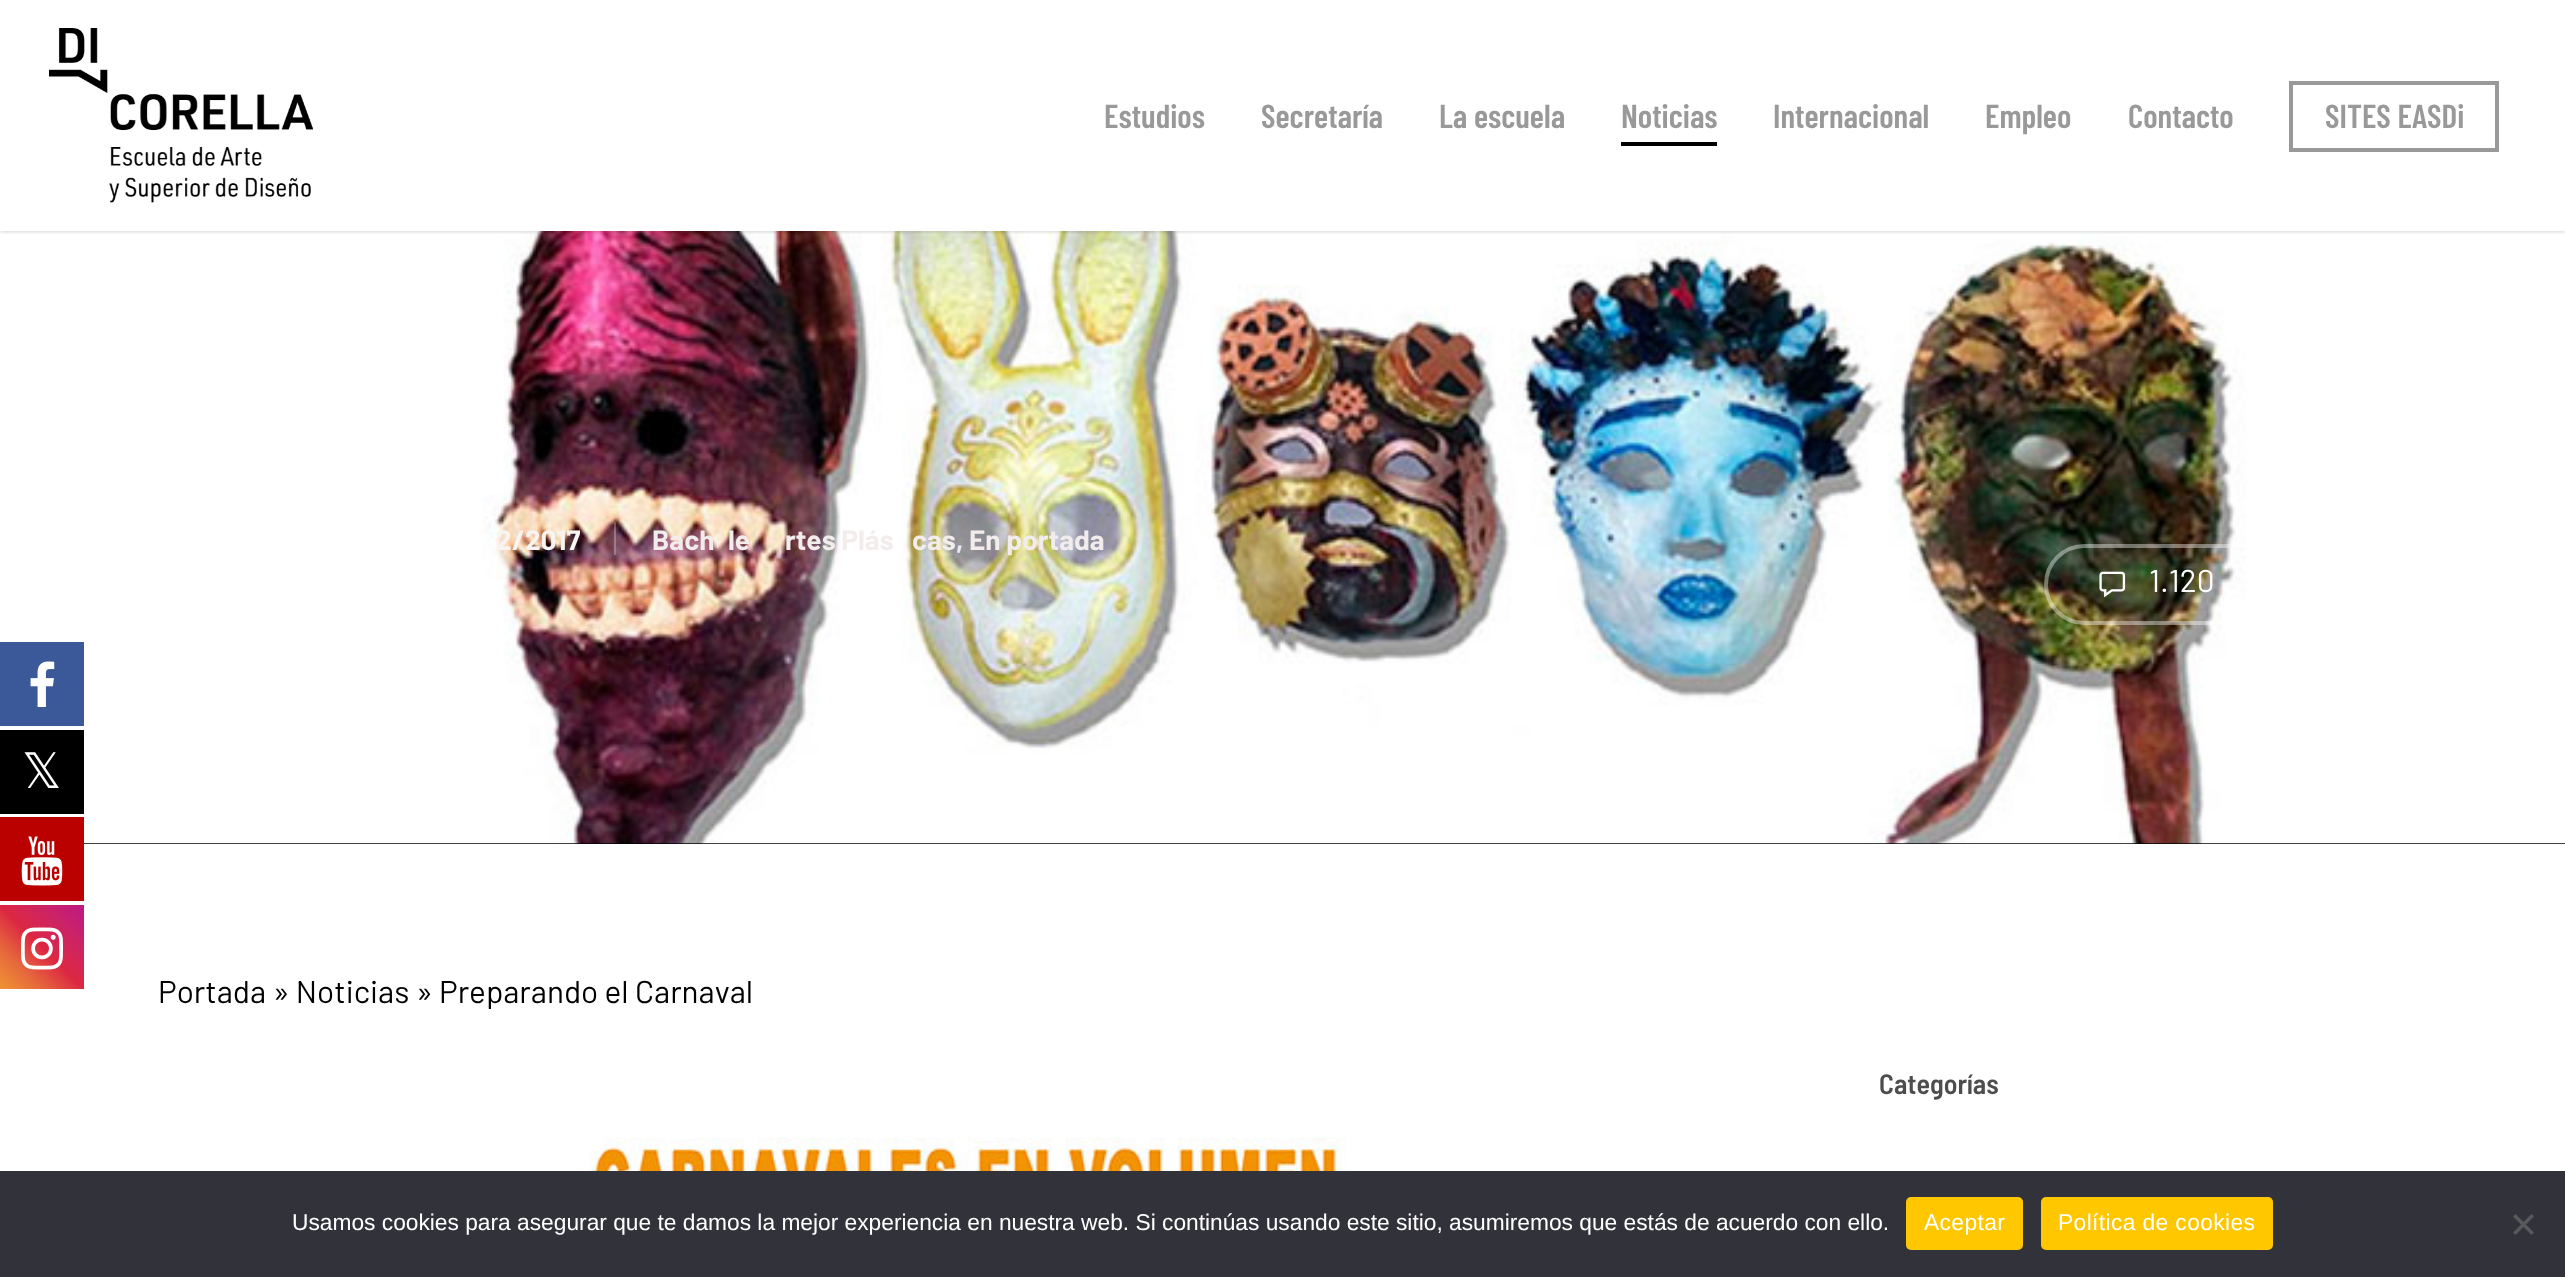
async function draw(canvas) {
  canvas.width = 2565
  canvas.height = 1277
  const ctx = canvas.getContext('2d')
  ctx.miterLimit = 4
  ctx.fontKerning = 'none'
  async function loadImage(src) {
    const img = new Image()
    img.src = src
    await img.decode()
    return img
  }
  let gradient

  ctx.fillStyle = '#fff'
  ctx.fillRect(0, 0, 2565, 1277)
  ctx.fillStyle = '#000'
  ctx.fillRect(84, 843, 2481, 1)
  ctx.drawImage(await loadImage('image4.png'), 0, 231, 2565, 613)
  ctx.save()
  ctx.beginPath()
  ctx.rect(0, 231, 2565, 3)
  ctx.clip()
  ctx.fillStyle = '#00000038'
  ctx.filter = 'blur(2.5px)'
  ctx.beginPath()
  ctx.rect(0, 0, 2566, 231)
  ctx.fill()
  ctx.filter = 'none'
  ctx.restore()
  ctx.drawImage(await loadImage('image0.png'), 49, 28, 264, 175)
  ctx.font = '600 33.25px Barlow Condensed'
  ctx.fillStyle = '#999'
  ctx.fillText('Estudios', 1104, 128)
  ctx.fillText('Secretaría', 1261, 128)
  ctx.fillText('La escuela', 1439, 128)
  ctx.fillText('Noticias', 1621, 128)
  ctx.fillStyle = '#000'
  ctx.fillRect(1621, 142, 96, 4)
  ctx.fillStyle = '#999'
  ctx.fillText('Internacional', 1773, 128)
  ctx.fillText('Empleo', 1985, 128)
  ctx.fillText('Contacto', 2128, 128)
  ctx.strokeStyle = '#999'
  ctx.lineWidth = 4
  ctx.strokeRect(2291, 83, 206, 67)
  ctx.fillText('SITES EASDi', 2325, 128)
  ctx.fillStyle = '#3b5998'
  ctx.fillRect(0, 642, 84, 84)
  ctx.drawImage(await loadImage('image1.png'), 30, 661, 25, 46)
  ctx.fillStyle = '#000'
  ctx.fillRect(0, 730, 84, 84)
  ctx.font = '49px DejaVu Sans'
  ctx.fillStyle = '#fff'
  ctx.fillText('𝕏', 22, 788)
  ctx.fillStyle = '#b00'
  ctx.fillRect(0, 817, 84, 84)
  ctx.drawImage(await loadImage('image2.png'), 21, 836, 42, 50)
  gradient = ctx.createLinearGradient(0, 989, 84, 905)
  gradient.addColorStop(0, '#f09433')
  gradient.addColorStop(0.25, '#e6683c')
  gradient.addColorStop(0.5, '#dc2743')
  gradient.addColorStop(0.75, '#cc2366')
  gradient.addColorStop(1, '#bc1888')
  ctx.fillStyle = gradient
  ctx.fillRect(0, 905, 84, 84)
  ctx.drawImage(await loadImage('image3.png'), 21, 927, 42, 43)
  ctx.font = 'bold 28px Barlow'
  ctx.fillStyle = '#f7f4f1'
  ctx.fillText('2/2017', 496, 550)
  ctx.fillStyle = '#f2edec'
  ctx.fillText('Bach', 652, 550)
  ctx.fillStyle = '#ffffff40'
  ctx.fillRect(614, 522, 2, 33)
  ctx.fillStyle = '#f2edec'
  ctx.fillText('le', 728, 550)
  ctx.fillText('rtes Plás', 785, 550)
  ctx.fillText('cas', 912, 550)
  ctx.fillStyle = '#e9e9eb'
  ctx.fillText(',', 956, 550)
  ctx.fillStyle = '#f2edec'
  ctx.fillText('En portada', 969, 550)
  ctx.beginPath()
  ctx.roundRect(2046, 546, 360, 77, 38.5)
  ctx.strokeStyle = '#ffffff66'
  ctx.stroke()
  ctx.drawImage(await loadImage('image5.png'), 2099, 571, 27, 27)
  ctx.font = '31.5px Barlow'
  ctx.fillStyle = '#fff'
  ctx.fillText('1.120', 2149, 592)
  ctx.fillStyle = '#000'
  ctx.fillText('Portada » Noticias » Preparando el Carnaval', 158, 1003)
  ctx.font = '600 28px Barlow Semi Condensed'
  ctx.fillStyle = '#4d4d4d'
  ctx.fillText('Categorías', 1879, 1094)
  ctx.drawImage(await loadImage('image6.png'), 478, 1137, 868, 34)
  ctx.fillStyle = '#32323a'
  ctx.fillRect(0, 1171, 2565, 106)
  ctx.font = '22.75px Liberation Sans'
  ctx.fillStyle = '#fff'
  ctx.fillText('Usamos cookies para asegurar que te damos la mejor experiencia en nuestra web. Si continúas usando este sitio, asumiremos que estás de acuerdo con ello.', 292, 1230)
  ctx.fillStyle = '#ffc700'
  ctx.beginPath()
  ctx.roundRect(1906, 1197, 117, 53, 5)
  ctx.fill()
  ctx.letterSpacing = '0.4px'
  ctx.fillStyle = '#fff'
  ctx.fillText('Aceptar', 1924, 1230)
  ctx.fillStyle = '#ffc700'
  ctx.beginPath()
  ctx.roundRect(2041, 1197, 232, 53, 5)
  ctx.fill()
  ctx.fillStyle = '#fff'
  ctx.fillText('Política de cookies', 2058, 1230)
  ctx.fillStyle = '#59595d'
  ctx.beginPath()
  ctx.moveTo(2531.5, 1214)
  ctx.lineTo(2534, 1216.5)
  ctx.lineTo(2515.5, 1235)
  ctx.lineTo(2513, 1232.5)
  ctx.closePath()
  ctx.fill()
  ctx.beginPath()
  ctx.moveTo(2513, 1216.5)
  ctx.lineTo(2515.5, 1214)
  ctx.lineTo(2534, 1232.5)
  ctx.lineTo(2531.5, 1235)
  ctx.closePath()
  ctx.fill()
}

draw(document.querySelector('canvas'))
